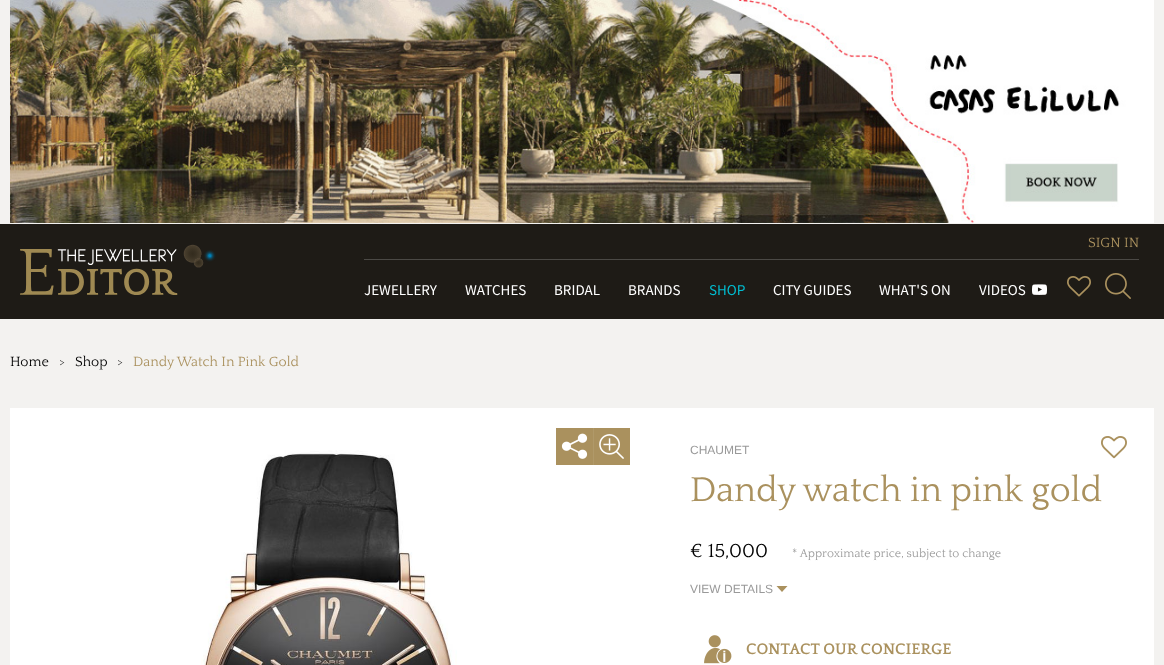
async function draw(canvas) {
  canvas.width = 1164
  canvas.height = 665
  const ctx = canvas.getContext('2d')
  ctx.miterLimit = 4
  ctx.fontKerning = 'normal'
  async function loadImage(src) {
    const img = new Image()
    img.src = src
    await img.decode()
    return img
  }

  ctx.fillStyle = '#f3f2f0'
  ctx.fillRect(0, 0, 1164, 665)
  ctx.drawImage(await loadImage('image0.png'), 10, 0, 1144, 223)
  ctx.fillStyle = '#1e1b16'
  ctx.fillRect(0, 224, 1164, 95)
  ctx.drawImage(await loadImage('image1.png'), 20, 244, 196, 51)
  ctx.font = '14px Quattrocento'
  ctx.fillStyle = '#aa915e'
  ctx.fillText('SIGN IN', 1088, 247)
  ctx.fillStyle = '#4b4945'
  ctx.fillRect(364, 259, 775, 1)
  ctx.font = '15px Source Sans Pro'
  ctx.fillStyle = '#fff'
  ctx.fillText('JEWELLERY', 364, 295)
  ctx.fillText('WATCHES', 465, 295)
  ctx.fillText('BRIDAL', 554, 295)
  ctx.fillText('BRANDS', 628, 295)
  ctx.fillStyle = '#00bdd1'
  ctx.fillText('SHOP', 709, 295)
  ctx.fillStyle = '#fff'
  ctx.fillText('CITY GUIDES', 773, 295)
  ctx.fillText('WHAT\'S ON', 879, 295)
  ctx.fillText('VIDEOS', 979, 295)
  ctx.drawImage(await loadImage('image2.png'), 1032, 284, 15, 11)
  ctx.drawImage(await loadImage('image3.png'), 1067, 276, 24, 21)
  ctx.drawImage(await loadImage('image4.png'), 1105, 273, 26, 26)
  ctx.font = '14px Quattrocento'
  ctx.fillStyle = '#000'
  ctx.fillText('Home', 10, 366)
  ctx.fillStyle = '#333'
  ctx.fillText('>', 59, 366)
  ctx.fillStyle = '#000'
  ctx.fillText('Shop', 75, 366)
  ctx.fillStyle = '#333'
  ctx.fillText('>', 117, 366)
  ctx.fillStyle = '#aa915e'
  ctx.fillText('Dandy Watch In Pink Gold', 133, 366)
  ctx.fillStyle = '#fff'
  ctx.fillRect(10, 408, 1144, 257)
  ctx.drawImage(await loadImage('image5.png'), 201, 450, 256, 215)
  ctx.drawImage(await loadImage('image6.png'), 556, 428, 37, 37)
  ctx.drawImage(await loadImage('image7.png'), 593, 428, 37, 37)
  ctx.font = '12px Liberation Sans'
  ctx.fillStyle = '#999'
  ctx.fillText('CHAUMET', 690, 454)
  ctx.font = '36px Quattrocento'
  ctx.fillStyle = '#aa915e'
  ctx.fillText('Dandy watch in pink gold', 690, 501)
  ctx.font = '20px Quattrocento'
  ctx.fillStyle = '#000'
  ctx.fillText('€ 15,000', 690, 557)
  ctx.font = '12px Quattrocento'
  ctx.fillStyle = '#999'
  ctx.fillText('* Approximate price, subject to change', 792, 557)
  ctx.font = '12px Liberation Sans'
  ctx.fillText('VIEW DETAILS', 690, 593)
  ctx.fillStyle = '#aa915e'
  ctx.beginPath()
  ctx.moveTo(776.5, 586)
  ctx.lineTo(782, 592)
  ctx.lineTo(787.5, 586)
  ctx.closePath()
  ctx.fill()
  ctx.drawImage(await loadImage('image8.png'), 704, 635, 28, 29)
  ctx.font = 'bold 16px Quattrocento'
  ctx.fillText('CONTACT OUR CONCIERGE', 746, 654)
  ctx.drawImage(await loadImage('image9.png'), 1101, 436, 26, 23)
}

draw(document.querySelector('canvas'))
